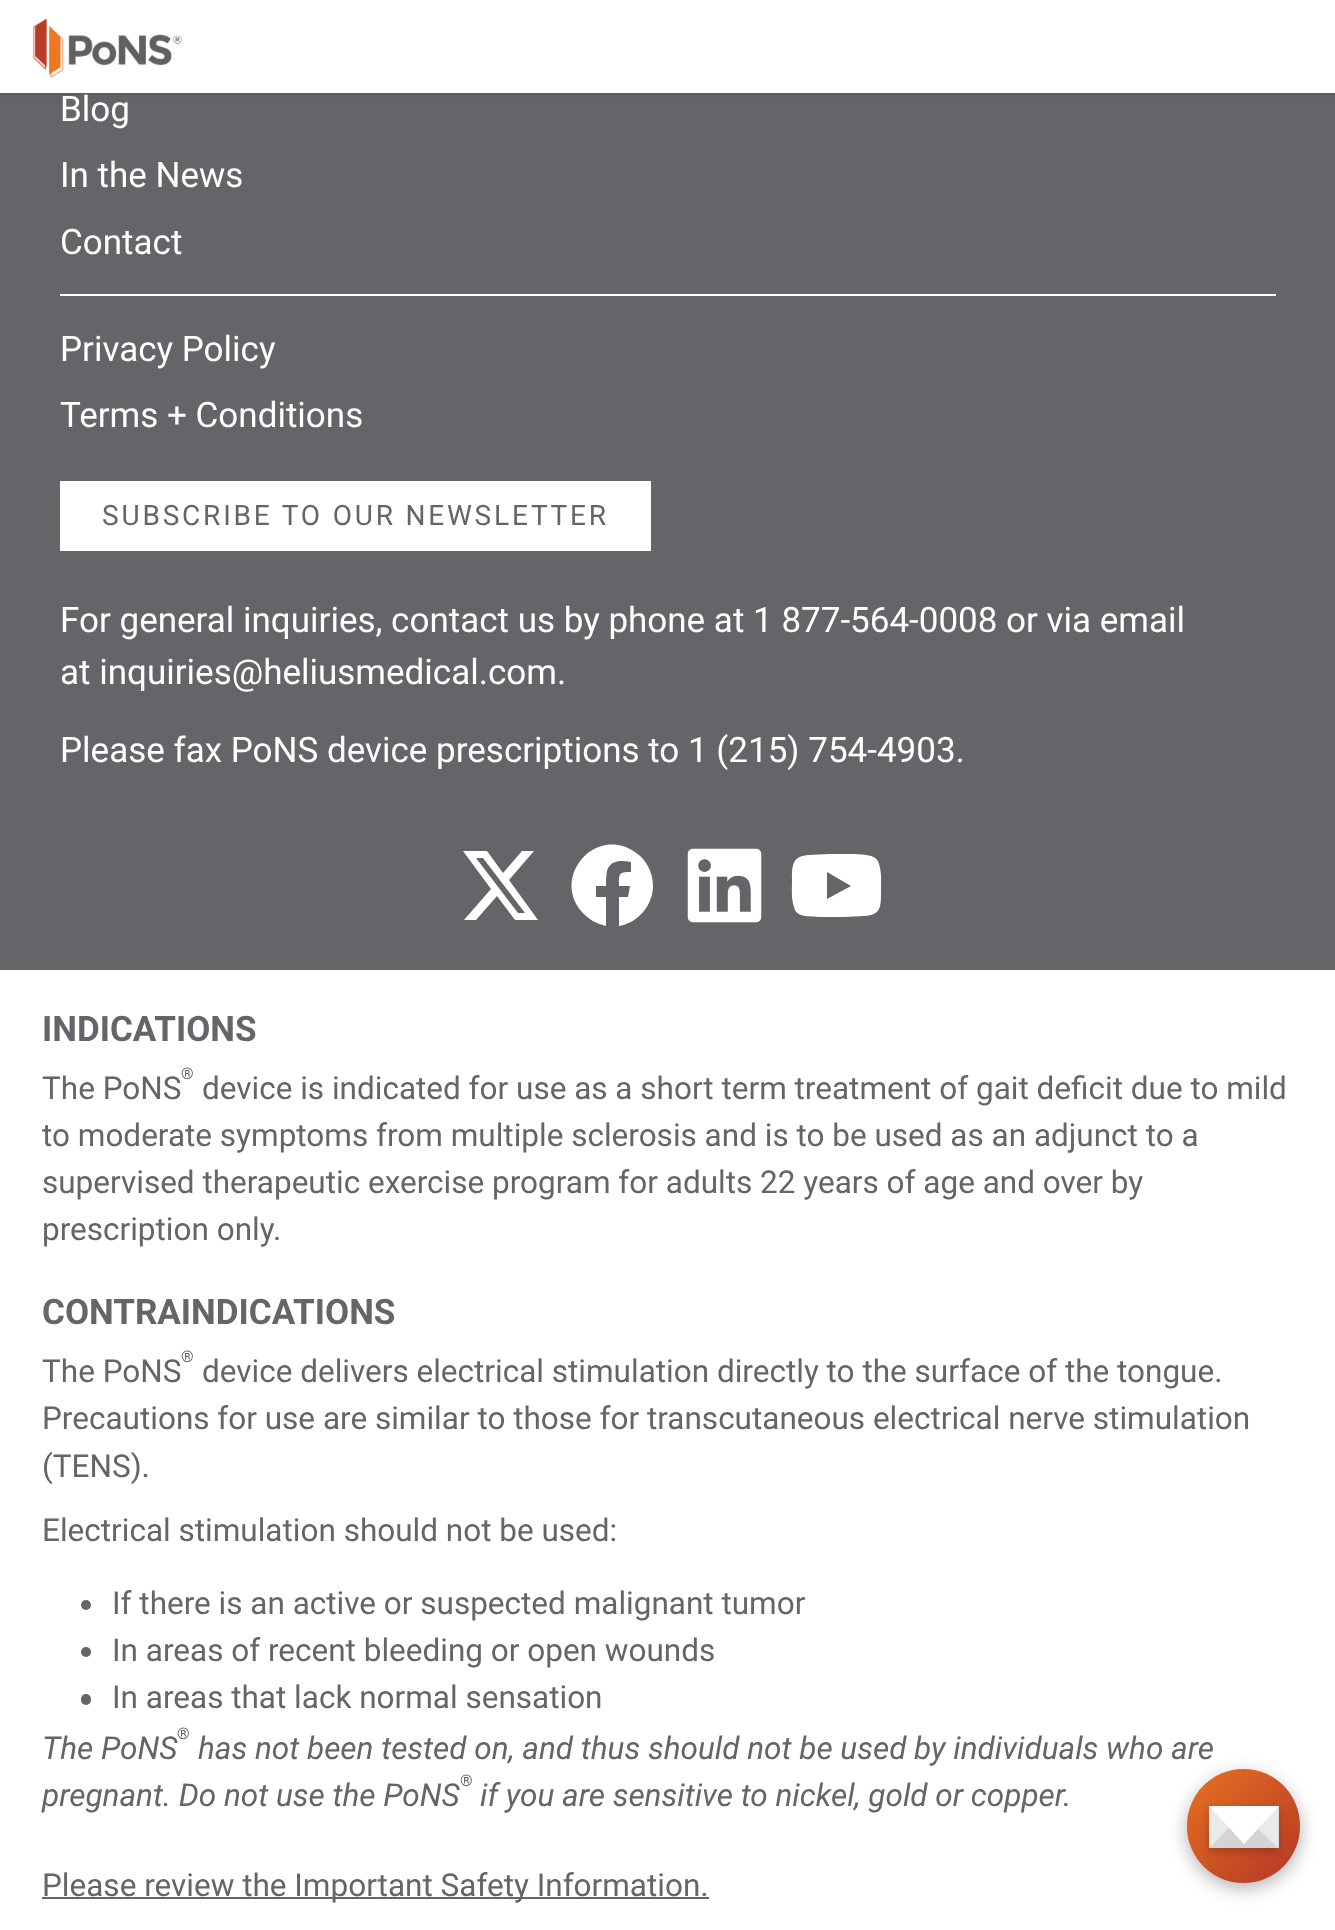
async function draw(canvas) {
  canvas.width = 1335
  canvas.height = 1930
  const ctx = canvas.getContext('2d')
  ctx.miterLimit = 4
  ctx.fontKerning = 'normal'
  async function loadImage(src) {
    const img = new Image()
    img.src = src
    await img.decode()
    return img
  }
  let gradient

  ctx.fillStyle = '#fff'
  ctx.fillRect(0, 0, 1335, 1930)
  ctx.fillStyle = '#636569'
  ctx.fillRect(0, 93, 1335, 877)
  ctx.fillStyle = '#3c3c3c33'
  ctx.filter = 'blur(3.5px)'
  ctx.beginPath()
  ctx.rect(0, 2, 1335, 93)
  ctx.fill()
  ctx.filter = 'none'
  ctx.fillStyle = '#fff'
  ctx.fillRect(0, 0, 1335, 93)
  ctx.drawImage(await loadImage('image0.png'), 32, 18, 150, 60)
  ctx.fillRect(60, 294, 1216, 2)
  ctx.font = '35px Roboto'
  ctx.fillText('Blog', 60, 121)
  ctx.fillText('In the News', 60, 187)
  ctx.fillText('Contact', 60, 254)
  ctx.fillText('Privacy Policy', 60, 361)
  ctx.fillText('Terms + Conditions', 60, 427)
  ctx.fillRect(60, 481, 591, 70)
  ctx.letterSpacing = '2.8px'
  ctx.font = '28px Roboto'
  ctx.fillStyle = '#636569'
  ctx.fillText('SUBSCRIBE TO OUR NEWSLETTER', 102, 525)
  ctx.letterSpacing = '0px'
  ctx.font = '35px Roboto'
  ctx.fillStyle = '#fff'
  ctx.fillText('For general inquiries, contact us by phone at 1 877-564-0008 or via email', 60, 632)
  ctx.fillText('at inquiries@heliusmedical.com.', 60, 684)
  ctx.fillText('Please fax PoNS device prescriptions to 1 (215) 754-4903.', 60, 762)
  ctx.beginPath()
  ctx.moveTo(522, 851)
  ctx.lineTo(534, 851)
  ctx.lineTo(509, 880)
  ctx.lineTo(538, 920)
  ctx.lineTo(515, 920)
  ctx.lineTo(497, 896)
  ctx.lineTo(476, 920)
  ctx.lineTo(464, 920)
  ctx.lineTo(491, 889)
  ctx.lineTo(463, 851)
  ctx.lineTo(487, 851)
  ctx.lineTo(503, 873)
  ctx.closePath()
  ctx.moveTo(518, 913)
  ctx.lineTo(525, 913)
  ctx.lineTo(483, 858)
  ctx.lineTo(476, 858)
  ctx.closePath()
  ctx.fill()
  ctx.beginPath()
  ctx.moveTo(653, 886)
  ctx.bezierCurveTo(653, 905, 638, 923, 619, 926)
  ctx.lineTo(619, 897)
  ctx.lineTo(628, 897)
  ctx.lineTo(630, 886)
  ctx.lineTo(619, 886)
  ctx.bezierCurveTo(619, 874, 618, 872, 631, 872)
  ctx.lineTo(631, 862)
  ctx.bezierCurveTo(621, 860, 610, 860, 607, 871)
  ctx.bezierCurveTo(606, 876, 606, 881, 606, 886)
  ctx.lineTo(596, 886)
  ctx.lineTo(596, 897)
  ctx.lineTo(606, 897)
  ctx.lineTo(606, 926)
  ctx.bezierCurveTo(597, 924, 588, 919, 582, 912)
  ctx.bezierCurveTo(551, 876, 596, 825, 635, 852)
  ctx.bezierCurveTo(646, 859, 653, 872, 653, 886)
  ctx.closePath()
  ctx.fill()
  ctx.drawImage(await loadImage('image1.png'), 687, 848, 75, 75)
  ctx.beginPath()
  ctx.moveTo(879, 864)
  ctx.bezierCurveTo(882, 873, 881, 883, 881, 892)
  ctx.bezierCurveTo(881, 907, 881, 915, 864, 916)
  ctx.lineTo(844, 917)
  ctx.lineTo(818, 917)
  ctx.bezierCurveTo(810, 916, 796, 918, 794, 907)
  ctx.bezierCurveTo(791, 898, 792, 888, 792, 879)
  ctx.bezierCurveTo(792, 864, 793, 856, 809, 855)
  ctx.lineTo(829, 854)
  ctx.lineTo(855, 854)
  ctx.bezierCurveTo(864, 855, 877, 854, 879, 864)
  ctx.closePath()
  ctx.moveTo(827, 899)
  ctx.lineTo(851, 886)
  ctx.lineTo(827, 872)
  ctx.closePath()
  ctx.fill()
  ctx.font = 'bold 35px Roboto'
  ctx.fillStyle = '#636569'
  ctx.fillText('INDICATIONS', 42, 1041)
  ctx.font = '16px Roboto'
  ctx.fillText('®', 181, 1079)
  ctx.font = '31.5px Roboto'
  ctx.fillText('The PoNS', 42, 1099)
  ctx.fillText('device is indicated for use as a short term treatment of gait deficit due to mild', 202, 1099)
  ctx.fillText('to moderate symptoms from multiple sclerosis and is to be used as an adjunct to a', 42, 1146)
  ctx.fillText('supervised therapeutic exercise program for adults 22 years of age and over by', 42, 1193)
  ctx.fillText('prescription only.', 42, 1240)
  ctx.font = 'bold 35px Roboto'
  ctx.fillText('CONTRAINDICATIONS', 42, 1324)
  ctx.font = '16px Roboto'
  ctx.fillText('®', 181, 1362)
  ctx.font = '31.5px Roboto'
  ctx.fillText('The PoNS', 42, 1382)
  ctx.fillText('device delivers electrical stimulation directly to the surface of the tongue.', 202, 1382)
  ctx.fillText('Precautions for use are similar to those for transcutaneous electrical nerve stimulation', 42, 1429)
  ctx.fillText('(TENS).', 42, 1477)
  ctx.fillText('Electrical stimulation should not be used:', 42, 1541)
  ctx.beginPath()
  ctx.arc(86, 1605, 5, 0, 2 * Math.PI)
  ctx.fill()
  ctx.fillText('If there is an active or suspected malignant tumor', 112, 1614)
  ctx.beginPath()
  ctx.arc(86, 1652, 5, 0, 2 * Math.PI)
  ctx.fill()
  ctx.fillText('In areas of recent bleeding or open wounds', 112, 1661)
  ctx.beginPath()
  ctx.roundRect(81, 1694, 10, 11, 5)
  ctx.fill()
  ctx.fillText('In areas that lack normal sensation', 112, 1708)
  ctx.font = '16px Roboto'
  ctx.fillText('®', 177, 1739)
  ctx.font = 'italic 31.5px Roboto'
  ctx.fillText('The PoNS', 42, 1759)
  ctx.fillText('has not been tested on, and thus should not be used by individuals who are', 198, 1759)
  ctx.font = '16px Roboto'
  ctx.fillText('®', 460, 1786)
  ctx.font = 'italic 31.5px Roboto'
  ctx.fillText('pregnant. Do not use the PoNS', 42, 1806)
  ctx.fillText('if you are sensitive to nickel, gold or copper.', 480, 1806)
  ctx.fillRect(42, 1897, 667, 2)
  ctx.font = '31.5px Roboto'
  ctx.fillText('Please review the Important Safety Information.', 42, 1896)
  ctx.fillStyle = '#0000004d'
  ctx.filter = 'blur(9px)'
  ctx.beginPath()
  ctx.roundRect(1187, 1775, 113, 113, 56.5)
  ctx.fill()
  ctx.filter = 'none'
  gradient = ctx.createLinearGradient(1187, 1769, 1300, 1883)
  gradient.addColorStop(0, '#e77121')
  gradient.addColorStop(1, '#b43726')
  ctx.fillStyle = gradient
  ctx.beginPath()
  ctx.roundRect(1187, 1769, 113, 114, 56.5)
  ctx.fill()
  ctx.fillStyle = '#00000033'
  ctx.filter = 'blur(4.5px)'
  ctx.beginPath()
  ctx.rect(1209, 1810, 70, 42)
  ctx.fill()
  ctx.filter = 'none'
  ctx.fillStyle = '#ddd'
  ctx.fillRect(1209, 1806, 70, 42)
  ctx.fillStyle = '#d4d4d4'
  ctx.beginPath()
  ctx.moveTo(1279, 1848)
  ctx.lineTo(1209, 1848)
  ctx.lineTo(1244, 1810)
  ctx.closePath()
  ctx.fill()
  ctx.fillStyle = '#eaeaea'
  ctx.beginPath()
  ctx.moveTo(1209, 1848)
  ctx.lineTo(1209, 1806)
  ctx.lineTo(1230, 1827)
  ctx.closePath()
  ctx.fill()
  ctx.beginPath()
  ctx.moveTo(1278, 1806)
  ctx.lineTo(1278, 1848)
  ctx.lineTo(1256, 1827)
  ctx.closePath()
  ctx.fill()
  ctx.fillStyle = '#fff'
  ctx.beginPath()
  ctx.moveTo(1209, 1806)
  ctx.lineTo(1279, 1806)
  ctx.lineTo(1244, 1844)
  ctx.closePath()
  ctx.fill()
}

draw(document.querySelector('canvas'))
